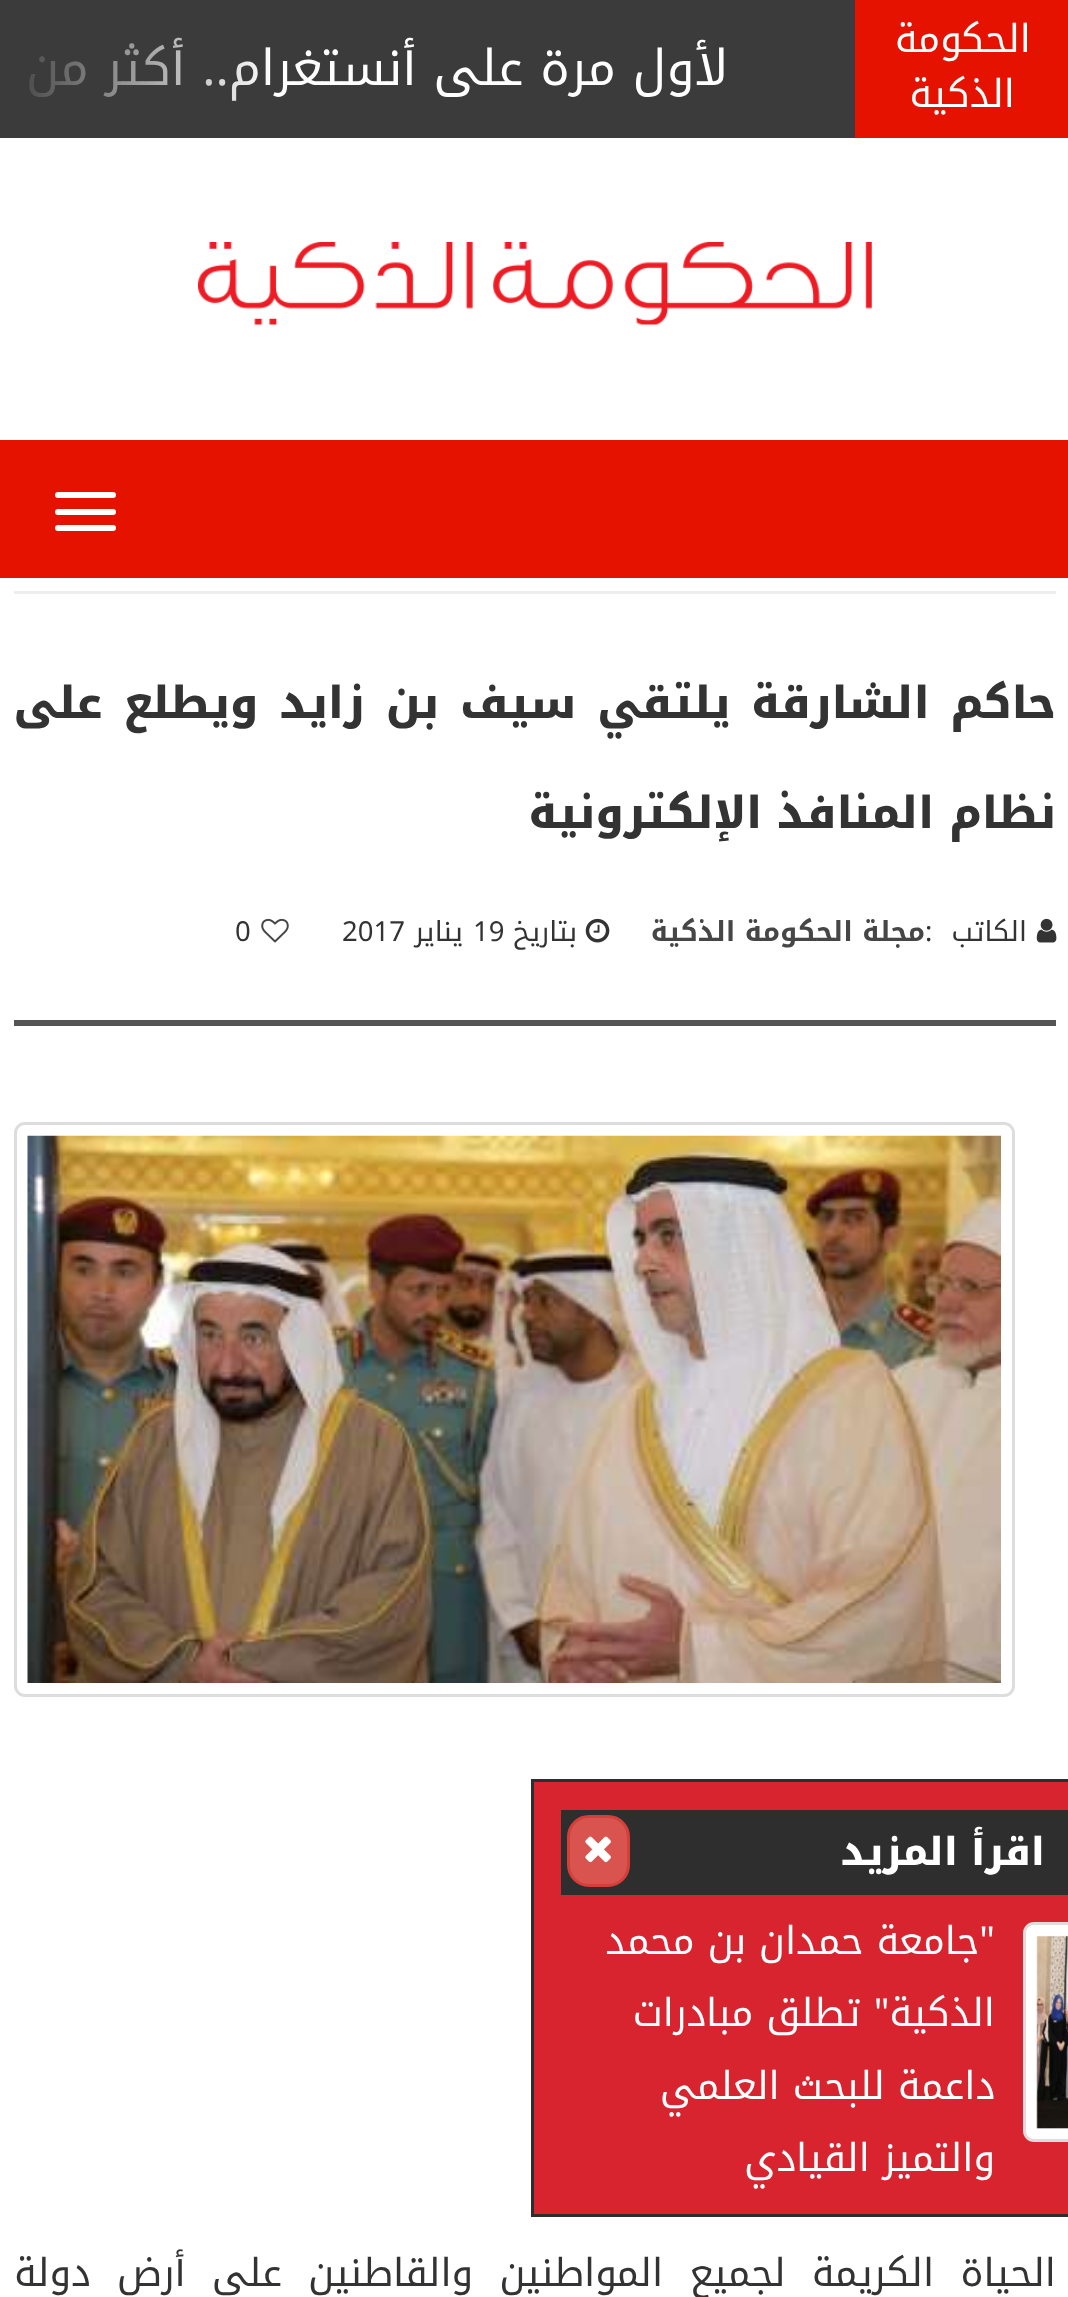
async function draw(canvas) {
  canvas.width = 1068
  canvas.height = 2297
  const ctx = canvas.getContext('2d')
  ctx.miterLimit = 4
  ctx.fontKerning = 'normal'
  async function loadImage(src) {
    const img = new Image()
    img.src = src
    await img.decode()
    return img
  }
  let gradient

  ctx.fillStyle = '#3b3b3b'
  ctx.fillRect(0, 0, 1068, 2297)
  ctx.fillStyle = '#e51200'
  ctx.fillRect(855, 0, 213, 138)
  ctx.direction = 'rtl'
  ctx.font = '38.5px Noto Kufi Arabic'
  ctx.fillStyle = '#fff'
  ctx.fillText('الحكومة', 1031, 52)
  ctx.fillText('الذكية', 1015, 107)
  ctx.font = '49.5px Noto Kufi Arabic'
  ctx.fillText('لأول مرة على أنستغرام.. أكثر من', 728, 85)
  gradient = ctx.createLinearGradient(0, 69, 275, 69)
  gradient.addColorStop(0, '#3b3b3b')
  gradient.addColorStop(1, '#3b3b3b00')
  ctx.fillStyle = gradient
  ctx.fillRect(29, 37, 240, 64)
  ctx.fillStyle = '#fff'
  ctx.fillRect(0, 138, 1068, 302)
  ctx.drawImage(await loadImage('image0.png'), 198, 242, 674, 83)
  ctx.fillStyle = '#e51200'
  ctx.fillRect(0, 440, 1068, 138)
  ctx.fillStyle = '#fff'
  ctx.beginPath()
  ctx.roundRect(55, 492, 61, 6, 3)
  ctx.fill()
  ctx.beginPath()
  ctx.roundRect(55, 509, 61, 6, 3)
  ctx.fill()
  ctx.beginPath()
  ctx.roundRect(55, 525, 61, 6, 3)
  ctx.fill()
  ctx.fillRect(0, 578, 1068, 1719)
  ctx.fillStyle = '#eee'
  ctx.fillRect(14, 591, 1042, 3)
  ctx.wordSpacing = '6px'
  ctx.font = '800 44px Noto Kufi Arabic'
  ctx.fillStyle = '#333'
  ctx.fillText('حاكم الشارقة يلتقي سيف بن زايد ويطلع على', 1056, 718)
  ctx.wordSpacing = '0px'
  ctx.fillText('نظام المنافذ الإلكترونية', 1056, 828)
  ctx.drawImage(await loadImage('image1.png'), 1036, 918, 21, 25)
  ctx.font = '27.5px Noto Kufi Arabic'
  ctx.fillText('الكاتب', 1027, 941)
  ctx.direction = 'ltr'
  ctx.fillText(':', 925, 941)
  ctx.direction = 'rtl'
  ctx.font = 'bold 27.5px Noto Kufi Arabic'
  ctx.fillStyle = '#464646'
  ctx.fillText('مجلة الحكومة الذكية', 925, 941)
  ctx.drawImage(await loadImage('image2.png'), 585, 918, 25, 25)
  ctx.font = '27.5px Noto Kufi Arabic'
  ctx.fillStyle = '#333'
  ctx.fillText('بتاريخ', 577, 941)
  ctx.direction = 'ltr'
  ctx.fillText('19', 473, 941)
  ctx.direction = 'rtl'
  ctx.fillText('يناير', 463, 941)
  ctx.direction = 'ltr'
  ctx.fillText('2017', 342, 941)
  ctx.drawImage(await loadImage('image3.png'), 261, 918, 28, 25)
  ctx.fillText('0', 235, 941)
  ctx.fillStyle = '#555'
  ctx.fillRect(14, 1020, 1042, 6)
  ctx.beginPath()
  ctx.roundRect(15.5, 1123.5, 998, 572, 9.5)
  ctx.strokeStyle = '#ddd'
  ctx.lineWidth = 3
  ctx.stroke()
  ctx.drawImage(await loadImage('image4.png'), 27, 1135, 974, 548)
  ctx.wordSpacing = '13.25px'
  ctx.direction = 'rtl'
  ctx.font = '38.5px Noto Kufi Arabic'
  ctx.fillStyle = '#333'
  ctx.fillText('الحياة الكريمة لجميع المواطنين والقاطنين على أرض دولة', 1056, 2286)
  ctx.fillStyle = '#d8242f'
  ctx.beginPath()
  ctx.rect(532.5, 1780.5, 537, 435)
  ctx.fill()
  ctx.strokeStyle = '#2e2e2e'
  ctx.stroke()
  ctx.fillStyle = '#2e2e2e'
  ctx.fillRect(561, 1810, 507, 85)
  ctx.wordSpacing = '0px'
  ctx.font = '800 38.5px Noto Kufi Arabic'
  ctx.fillStyle = '#fff'
  ctx.fillText('اقرأ المزيد', 1045, 1865)
  ctx.fillStyle = '#d9534f'
  ctx.beginPath()
  ctx.roundRect(568.5, 1816.5, 60, 69, 20.5)
  ctx.fill()
  ctx.strokeStyle = '#d43f3a'
  ctx.stroke()
  ctx.drawImage(await loadImage('image5.png'), 585, 1836, 26, 27)
  ctx.fillStyle = '#fff'
  ctx.beginPath()
  ctx.roundRect(1024.5, 1923.5, 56, 217, 9.5)
  ctx.fill()
  ctx.strokeStyle = '#ddd'
  ctx.stroke()
  ctx.drawImage(await loadImage('image6.png'), 1036, 1935, 32, 194)
  ctx.font = '38.5px Noto Kufi Arabic'
  ctx.fillText('"جامعة حمدان بن محمد', 995, 1954)
  ctx.fillText('الذكية" تطلق مبادرات', 995, 2026)
  ctx.fillText('داعمة للبحث العلمي', 995, 2099)
  ctx.fillText('والتميز القيادي', 995, 2171)
}

draw(document.querySelector('canvas'))
